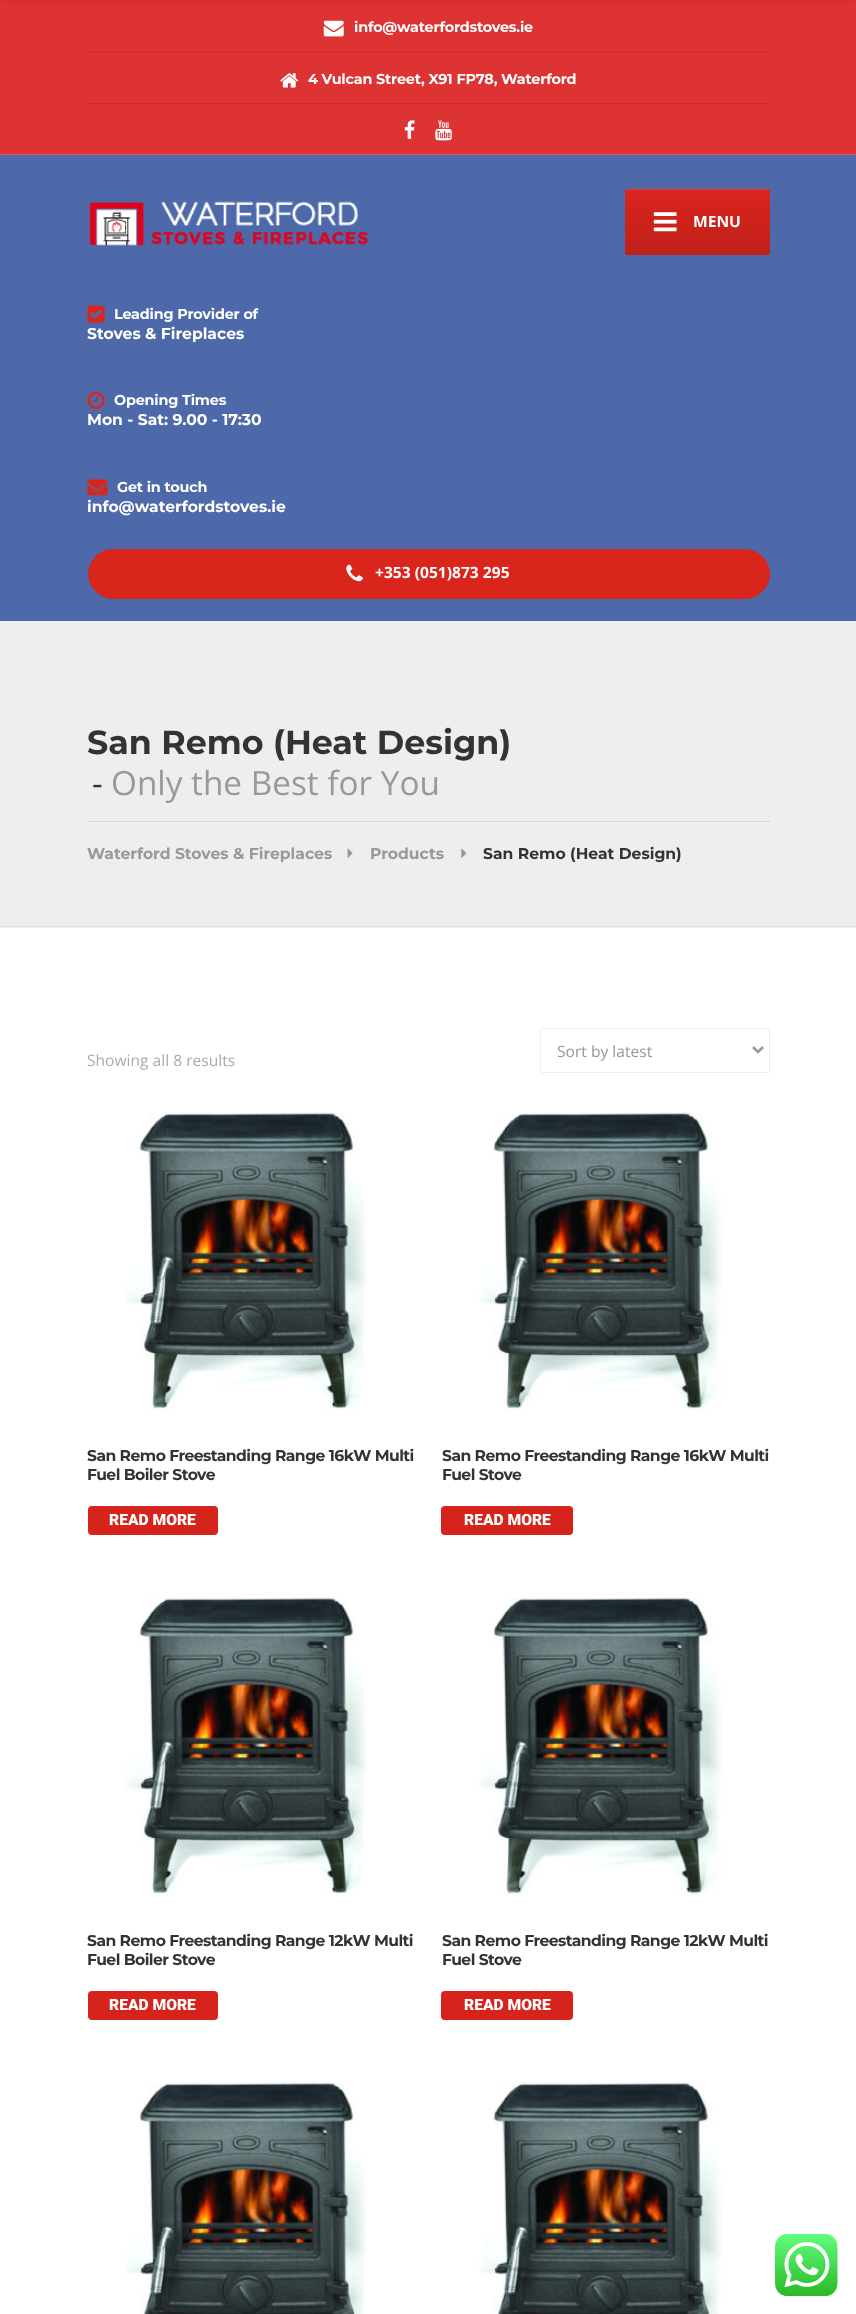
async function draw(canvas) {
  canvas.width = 856
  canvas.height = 2314
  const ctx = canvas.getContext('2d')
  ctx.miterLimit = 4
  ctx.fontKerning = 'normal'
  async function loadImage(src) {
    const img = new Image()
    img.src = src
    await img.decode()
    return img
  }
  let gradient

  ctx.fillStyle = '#fff'
  ctx.fillRect(0, 0, 856, 2314)
  ctx.fillStyle = '#d33'
  ctx.fillRect(0, 0, 856, 154)
  ctx.fillStyle = '#0000001a'
  ctx.filter = 'blur(2px)'
  ctx.beginPath()
  ctx.rect(0, -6, 856, 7)
  ctx.fill()
  ctx.filter = 'none'
  ctx.fillStyle = '#e45a5a'
  ctx.fillRect(0, 154, 856, 1)
  ctx.fillStyle = '#c72e2e'
  ctx.fillRect(88, 51, 682, 1)
  ctx.drawImage(await loadImage('image0.png'), 323, 20, 21, 17)
  ctx.letterSpacing = '-0.2px'
  ctx.font = '100 14.4px Montserrat'
  ctx.fillStyle = '#fff'
  ctx.fillText('info@waterfordstoves.ie', 354, 32)
  ctx.fillStyle = '#c72e2e'
  ctx.fillRect(88, 103, 682, 1)
  ctx.drawImage(await loadImage('image1.png'), 280, 73, 19, 15)
  ctx.fillStyle = '#fff'
  ctx.fillText('4 Vulcan Street, X91 FP78, Waterford', 308, 84)
  ctx.drawImage(await loadImage('image2.png'), 404, 120, 11, 19)
  ctx.drawImage(await loadImage('image3.png'), 435, 120, 17, 21)
  ctx.fillStyle = '#4d69a9'
  ctx.fillRect(0, 155, 856, 466)
  ctx.drawImage(await loadImage('image4.png'), 89, 201, 279, 45)
  ctx.fillStyle = '#da251d'
  ctx.beginPath()
  ctx.roundRect(625, 189, 145, 66, 2.5)
  ctx.fill()
  ctx.save()
  ctx.beginPath()
  ctx.roundRect(625, 189, 145, 66, 2.5)
  ctx.clip()
  gradient = ctx.createLinearGradient(698, 190, 698, 255)
  gradient.addColorStop(0, '#da251d')
  gradient.addColorStop(1, '#bf2019')
  ctx.fillStyle = gradient
  ctx.beginPath()
  ctx.roundRect(625, 190, 145, 65, [0, 0, 2.5, 2.5])
  ctx.fill()
  ctx.restore()
  ctx.fillStyle = '#e43932'
  ctx.fillRect(626, 189, 143, 1)
  ctx.drawImage(await loadImage('image5.png'), 653, 212, 24, 20)
  ctx.letterSpacing = '0px'
  ctx.font = 'bold 15.6px Open Sans'
  ctx.fillStyle = '#fff'
  ctx.fillText('MENU', 693, 227)
  ctx.drawImage(await loadImage('image6.png'), 87, 305, 18, 18)
  ctx.letterSpacing = '-0.2px'
  ctx.font = '100 14.4px Montserrat'
  ctx.fillText('Leading Provider of', 114, 319)
  ctx.letterSpacing = '0px'
  ctx.font = '100 15.6px Montserrat'
  ctx.fillText('Stoves & Fireplaces', 87, 339)
  ctx.drawImage(await loadImage('image7.png'), 87, 391, 18, 18)
  ctx.letterSpacing = '-0.2px'
  ctx.font = '100 14.4px Montserrat'
  ctx.fillText('Opening Times', 114, 405)
  ctx.letterSpacing = '0px'
  ctx.font = '100 15.6px Montserrat'
  ctx.fillText('Mon - Sat: 9.00 - 17:30', 87, 425)
  ctx.drawImage(await loadImage('image8.png'), 87, 479, 21, 17)
  ctx.letterSpacing = '-0.2px'
  ctx.font = '100 14.4px Montserrat'
  ctx.fillText('Get in touch', 117, 492)
  ctx.letterSpacing = '0px'
  ctx.font = '100 15.6px Montserrat'
  ctx.fillText('info@waterfordstoves.ie', 87, 512)
  ctx.fillStyle = '#da251d'
  ctx.beginPath()
  ctx.roundRect(88.5, 549.5, 681, 49, 24.5)
  ctx.fill()
  ctx.strokeStyle = '#da251d'
  ctx.stroke()
  ctx.drawImage(await loadImage('image9.png'), 346, 564, 17, 18)
  ctx.font = 'bold 15.6px Open Sans'
  ctx.fillStyle = '#fff'
  ctx.fillText('+353 (051)873 295', 375, 578)
  ctx.fillStyle = '#eee'
  ctx.fillRect(0, 621, 856, 307)
  ctx.fillStyle = '#e1e1e1'
  ctx.fillRect(0, 926, 856, 1)
  ctx.font = '100 33.3px Montserrat'
  ctx.fillStyle = '#333'
  ctx.fillText('San Remo (Heat Design)', 87, 754)
  ctx.font = '33.3px Open Sans'
  ctx.fillText('-', 92, 795)
  ctx.fillStyle = '#999'
  ctx.fillText('Only the Best for You', 111, 795)
  ctx.fillStyle = '#d6d6d6'
  ctx.fillRect(88, 821, 682, 1)
  ctx.font = '100 15.6px Montserrat'
  ctx.fillStyle = '#999'
  ctx.fillText('Waterford Stoves & Fireplaces', 87, 859)
  ctx.drawImage(await loadImage('image10.png'), 347, 848, 6, 10)
  ctx.fillText('Products', 370, 859)
  ctx.drawImage(await loadImage('image11.png'), 461, 848, 6, 10)
  ctx.fillStyle = '#333'
  ctx.fillText('San Remo (Heat Design)', 483, 859)
  ctx.font = '15.6px Open Sans'
  ctx.fillStyle = '#a6acb2'
  ctx.fillText('Showing all 8 results', 87, 1066)
  ctx.beginPath()
  ctx.roundRect(540.5, 1028.5, 229, 44, 2)
  ctx.strokeStyle = '#ebedf2'
  ctx.stroke()
  ctx.beginPath()
  ctx.moveTo(753, 1047)
  ctx.lineTo(758, 1052)
  ctx.lineTo(763, 1047)
  ctx.strokeStyle = '#999'
  ctx.lineWidth = 2.5
  ctx.stroke()
  ctx.fillStyle = '#999'
  ctx.fillText('Sort by latest', 557, 1057)
  ctx.drawImage(await loadImage('image12.png'), 125, 1112, 242, 299)
  ctx.letterSpacing = '-0.55px'
  ctx.font = '100 15.6px Montserrat'
  ctx.fillStyle = '#333'
  ctx.fillText('San Remo Freestanding Range 16kW Multi', 87, 1461)
  ctx.fillText('Fuel Boiler Stove', 87, 1480)
  ctx.fillStyle = '#d6241c'
  ctx.beginPath()
  ctx.roundRect(88, 1506, 130, 29, 4)
  ctx.fill()
  ctx.letterSpacing = '0px'
  ctx.font = '900 15.6px Roboto'
  ctx.fillStyle = '#fff'
  ctx.fillText('READ MORE', 109, 1525)
  ctx.drawImage(await loadImage('image13.png'), 479, 1112, 243, 299)
  ctx.letterSpacing = '-0.55px'
  ctx.font = '100 15.6px Montserrat'
  ctx.fillStyle = '#333'
  ctx.fillText('San Remo Freestanding Range 16kW Multi', 442, 1461)
  ctx.fillText('Fuel Stove', 442, 1480)
  ctx.fillStyle = '#d6241c'
  ctx.beginPath()
  ctx.roundRect(441, 1506, 132, 29, 4)
  ctx.fill()
  ctx.letterSpacing = '0px'
  ctx.font = '900 15.6px Roboto'
  ctx.fillStyle = '#fff'
  ctx.fillText('READ MORE', 464, 1525)
  ctx.drawImage(await loadImage('image14.png'), 125, 1597, 242, 299)
  ctx.letterSpacing = '-0.55px'
  ctx.font = '100 15.6px Montserrat'
  ctx.fillStyle = '#333'
  ctx.fillText('San Remo Freestanding Range 12kW Multi', 87, 1946)
  ctx.fillText('Fuel Boiler Stove', 87, 1965)
  ctx.fillStyle = '#d6241c'
  ctx.beginPath()
  ctx.roundRect(88, 1991, 130, 29, 4)
  ctx.fill()
  ctx.letterSpacing = '0px'
  ctx.font = '900 15.6px Roboto'
  ctx.fillStyle = '#fff'
  ctx.fillText('READ MORE', 109, 2010)
  ctx.drawImage(await loadImage('image15.png'), 479, 1597, 243, 299)
  ctx.letterSpacing = '-0.55px'
  ctx.font = '100 15.6px Montserrat'
  ctx.fillStyle = '#333'
  ctx.fillText('San Remo Freestanding Range 12kW Multi', 442, 1946)
  ctx.fillText('Fuel Stove', 442, 1965)
  ctx.fillStyle = '#d6241c'
  ctx.beginPath()
  ctx.roundRect(441, 1991, 132, 29, 4)
  ctx.fill()
  ctx.letterSpacing = '0px'
  ctx.font = '900 15.6px Roboto'
  ctx.fillStyle = '#fff'
  ctx.fillText('READ MORE', 464, 2010)
  ctx.drawImage(await loadImage('image16.png'), 125, 2082, 242, 232)
  ctx.drawImage(await loadImage('image17.png'), 479, 2082, 243, 232)
  ctx.drawImage(await loadImage('image18.png'), 775, 2234, 63, 62)
}

draw(document.querySelector('canvas'))
